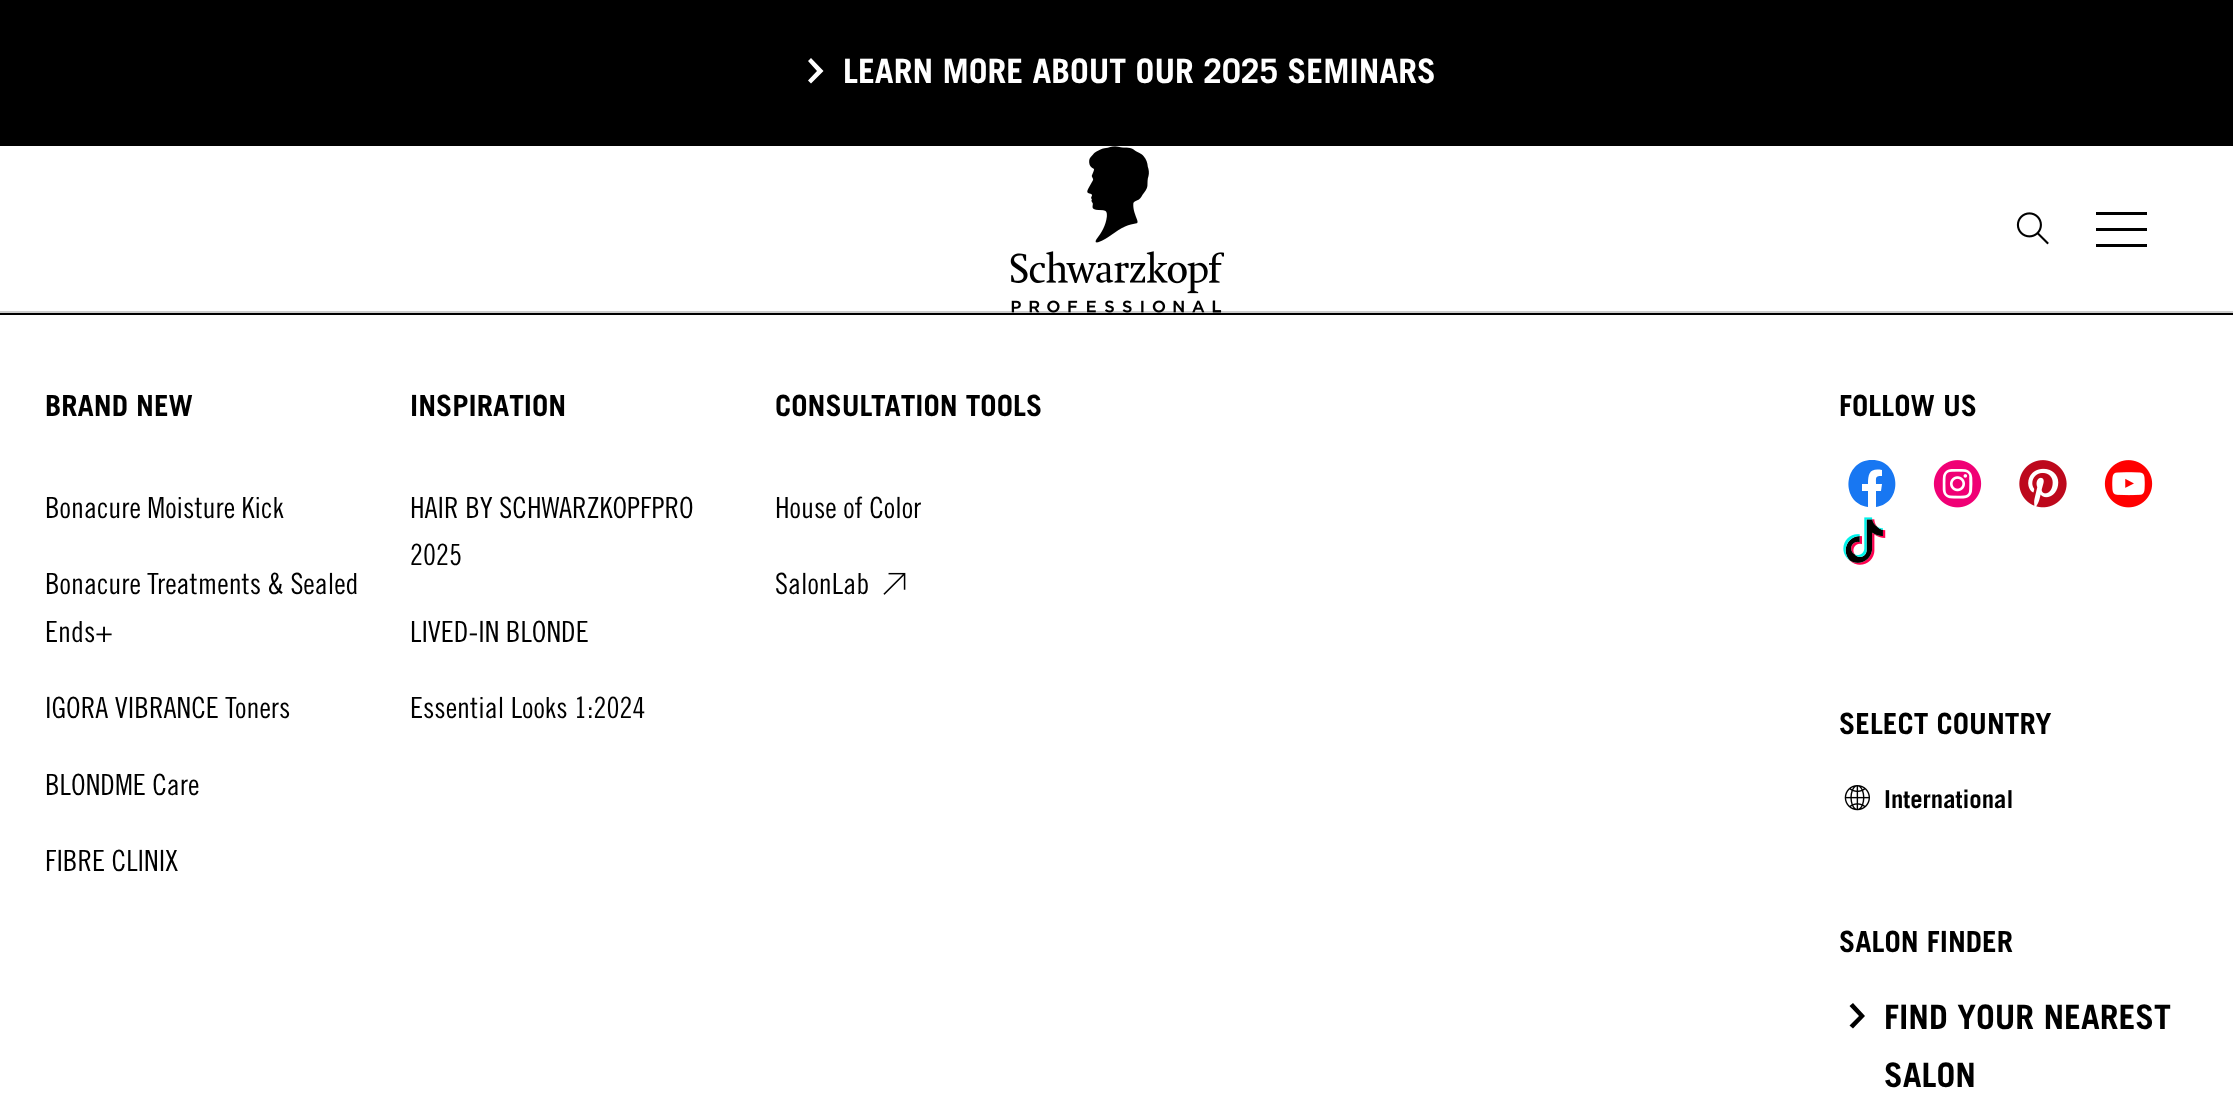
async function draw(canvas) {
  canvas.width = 2233
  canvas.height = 1094
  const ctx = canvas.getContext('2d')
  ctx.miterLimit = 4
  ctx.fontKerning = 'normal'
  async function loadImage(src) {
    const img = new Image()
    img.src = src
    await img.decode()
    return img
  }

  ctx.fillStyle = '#fff'
  ctx.fillRect(0, 0, 2233, 1094)
  ctx.fillStyle = '#000'
  ctx.fillRect(0, 0, 2233, 146)
  ctx.fillStyle = '#fff'
  ctx.beginPath()
  ctx.moveTo(811, 58)
  ctx.lineTo(823.5, 71)
  ctx.lineTo(811, 83.5)
  ctx.lineTo(808, 80.5)
  ctx.lineTo(817, 71)
  ctx.lineTo(808, 61)
  ctx.closePath()
  ctx.fill('evenodd')
  ctx.font = 'bold 33.75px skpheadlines'
  ctx.fillText('LEARN MORE ABOUT OUR 2025 SEMINARS', 843, 83)
  ctx.fillStyle = '#ccc'
  ctx.fillRect(0, 311, 2233, 2)
  ctx.drawImage(await loadImage('image0.png'), 1010, 146, 214, 167)
  ctx.drawImage(await loadImage('image1.png'), 2016, 212, 33, 33)
  ctx.fillStyle = '#000'
  ctx.beginPath()
  ctx.moveTo(2147, 244)
  ctx.lineTo(2147, 247)
  ctx.lineTo(2096, 247)
  ctx.lineTo(2096, 244)
  ctx.closePath()
  ctx.moveTo(2147, 228)
  ctx.lineTo(2147, 231)
  ctx.lineTo(2096, 231)
  ctx.lineTo(2096, 228)
  ctx.closePath()
  ctx.moveTo(2147, 212)
  ctx.lineTo(2147, 215)
  ctx.lineTo(2096, 215)
  ctx.lineTo(2096, 212)
  ctx.closePath()
  ctx.fill('evenodd')
  ctx.fillRect(0, 313, 2233, 2)
  ctx.font = 'bold 29.25px skpheadlines'
  ctx.fillText('BRAND NEW', 45, 416)
  ctx.font = '29.25px skpheadlines'
  ctx.fillText('Bonacure Moisture Kick', 45, 518)
  ctx.fillText('Bonacure Treatments & Sealed', 45, 594)
  ctx.fillText('Ends+', 45, 642)
  ctx.fillText('IGORA VIBRANCE Toners', 45, 718)
  ctx.fillText('BLONDME Care', 45, 795)
  ctx.fillText('FIBRE CLINIX', 45, 871)
  ctx.font = 'bold 29.25px skpheadlines'
  ctx.fillText('INSPIRATION', 410, 416)
  ctx.font = '29.25px skpheadlines'
  ctx.fillText('HAIR BY SCHWARZKOPFPRO', 410, 518)
  ctx.fillText('2025', 410, 565)
  ctx.fillText('LIVED-IN BLONDE', 410, 642)
  ctx.fillText('Essential Looks 1:2024', 410, 718)
  ctx.font = 'bold 29.25px skpheadlines'
  ctx.fillText('CONSULTATION TOOLS', 775, 416)
  ctx.font = '29.25px skpheadlines'
  ctx.fillText('House of Color', 775, 518)
  ctx.fillText('SalonLab', 775, 594)
  ctx.drawImage(await loadImage('image2.png'), 883, 572, 23, 23)
  ctx.font = 'bold 29.25px skpheadlines'
  ctx.fillText('FOLLOW US', 1839, 416)
  ctx.fillStyle = '#1877f2'
  ctx.beginPath()
  ctx.moveTo(1872, 460)
  ctx.bezierCurveTo(1843, 460, 1840, 503, 1868, 507)
  ctx.lineTo(1868, 491)
  ctx.lineTo(1862, 491)
  ctx.lineTo(1862, 484)
  ctx.lineTo(1868, 484)
  ctx.bezierCurveTo(1868, 473, 1870, 468, 1882, 470)
  ctx.lineTo(1882, 476)
  ctx.bezierCurveTo(1875, 476, 1876, 477, 1876, 484)
  ctx.lineTo(1882, 484)
  ctx.lineTo(1881, 491)
  ctx.lineTo(1876, 491)
  ctx.lineTo(1876, 507)
  ctx.bezierCurveTo(1904, 503, 1901, 460, 1872, 460)
  ctx.closePath()
  ctx.fill()
  ctx.drawImage(await loadImage('image3.png'), 1933, 460, 49, 48)
  ctx.drawImage(await loadImage('image4.png'), 2019, 460, 48, 48)
  ctx.drawImage(await loadImage('image5.png'), 2104, 460, 49, 48)
  ctx.drawImage(await loadImage('image6.png'), 1843, 517, 43, 48)
  ctx.fillStyle = '#000'
  ctx.fillText('SELECT COUNTRY', 1839, 734)
  ctx.drawImage(await loadImage('image7.png'), 1844, 785, 26, 26)
  ctx.font = 'bold 24.75px skpheadlines'
  ctx.fillText('International', 1884, 808)
  ctx.font = 'bold 29.25px skpheadlines'
  ctx.fillText('SALON FINDER', 1839, 952)
  ctx.beginPath()
  ctx.moveTo(1853, 1003)
  ctx.lineTo(1865, 1016)
  ctx.lineTo(1853, 1028.5)
  ctx.lineTo(1849.5, 1025.5)
  ctx.lineTo(1859, 1016)
  ctx.lineTo(1849.5, 1006)
  ctx.closePath()
  ctx.fill('evenodd')
  ctx.font = 'bold 33.75px skpheadlines'
  ctx.fillText('FIND YOUR NEAREST', 1884, 1029)
  ctx.fillText('SALON', 1884, 1087)
}

draw(document.querySelector('canvas'))
